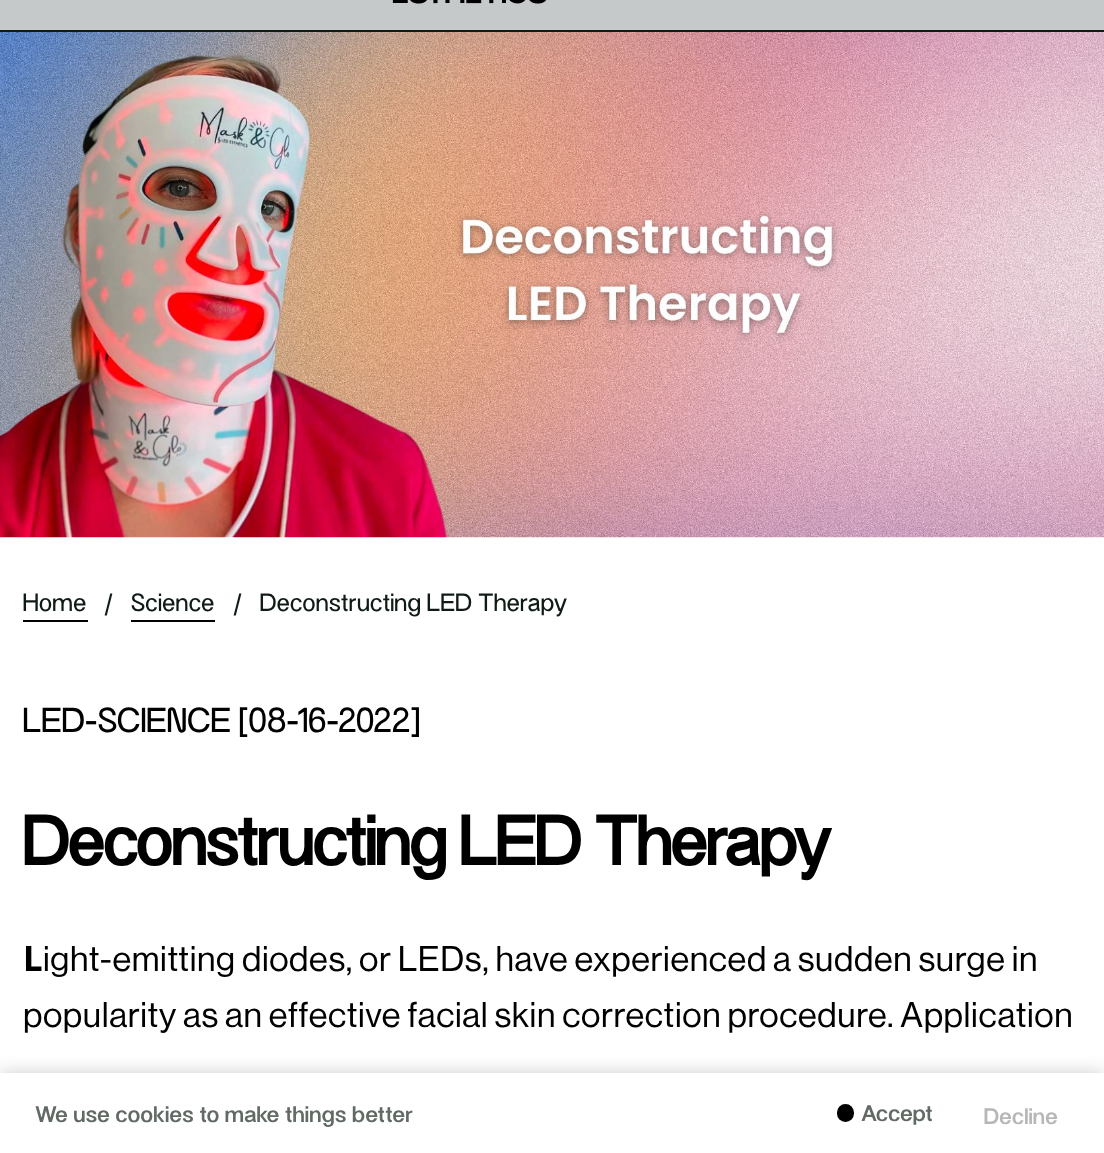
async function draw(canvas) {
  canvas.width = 1104
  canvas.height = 1153
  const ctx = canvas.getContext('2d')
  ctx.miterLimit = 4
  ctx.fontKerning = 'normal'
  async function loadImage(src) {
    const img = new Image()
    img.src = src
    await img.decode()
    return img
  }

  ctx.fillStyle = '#fff'
  ctx.fillRect(0, 0, 1104, 1153)
  ctx.fillStyle = '#c6c9ca'
  ctx.fillRect(0, 0, 1104, 30)
  ctx.fillStyle = '#101b13'
  ctx.fillRect(0, 30, 1104, 2)
  ctx.drawImage(await loadImage('image0.png'), 392, 0, 154, 4)
  ctx.drawImage(await loadImage('image1.png'), 0, 32, 1104, 506)
  ctx.letterSpacing = '0.63px'
  ctx.font = '25.25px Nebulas'
  ctx.fillStyle = '#0f1b14'
  ctx.fillText('Home', 23, 611)
  ctx.fillText('/', 104, 611)
  ctx.fillStyle = '#000'
  ctx.fillRect(23, 620, 65, 2)
  ctx.fillStyle = '#0f1b14'
  ctx.fillText('Science', 131, 611)
  ctx.fillText('/', 233, 611)
  ctx.fillStyle = '#000'
  ctx.fillRect(131, 620, 84, 2)
  ctx.fillStyle = '#0f1b14'
  ctx.fillText('Deconstructing LED Therapy', 260, 611)
  ctx.font = '35px Nebulas'
  ctx.fillStyle = '#000'
  ctx.fillText('LED-SCIENCE [08-16-2022]', 23, 732)
  ctx.letterSpacing = '0px'
  ctx.font = 'bold 70px Nebulas'
  ctx.fillText('Deconstructing LED Therapy', 23, 865)
  ctx.letterSpacing = '0.63px'
  ctx.font = 'bold 35px Noto Sans'
  ctx.fillText('L', 23, 971)
  ctx.font = '35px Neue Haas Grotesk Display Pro'
  ctx.fillText('ight-emitting diodes, or LEDs, have experienced a sudden surge in', 43, 971)
  ctx.fillText('popularity as an effective facial skin correction procedure. Application', 23, 1027)
  ctx.fillStyle = '#00000033'
  ctx.filter = 'blur(9px)'
  ctx.beginPath()
  ctx.rect(0, 1073, 1104, 80)
  ctx.fill()
  ctx.filter = 'none'
  ctx.fillStyle = '#fff'
  ctx.fillRect(0, 1073, 1104, 80)
  ctx.font = '500 22.75px Nebulas'
  ctx.fillStyle = '#616a64'
  ctx.fillText('We use cookies to make things better', 35, 1122)
  ctx.fillStyle = '#000'
  ctx.beginPath()
  ctx.roundRect(837, 1104, 17, 18, 8.5)
  ctx.fill()
  ctx.letterSpacing = '0.5px'
  ctx.fillStyle = '#616a64'
  ctx.fillText('Accept', 861, 1121)
  ctx.fillStyle = '#b7b7b7'
  ctx.fillText('Decline', 984, 1124)
}

draw(document.querySelector('canvas'))
